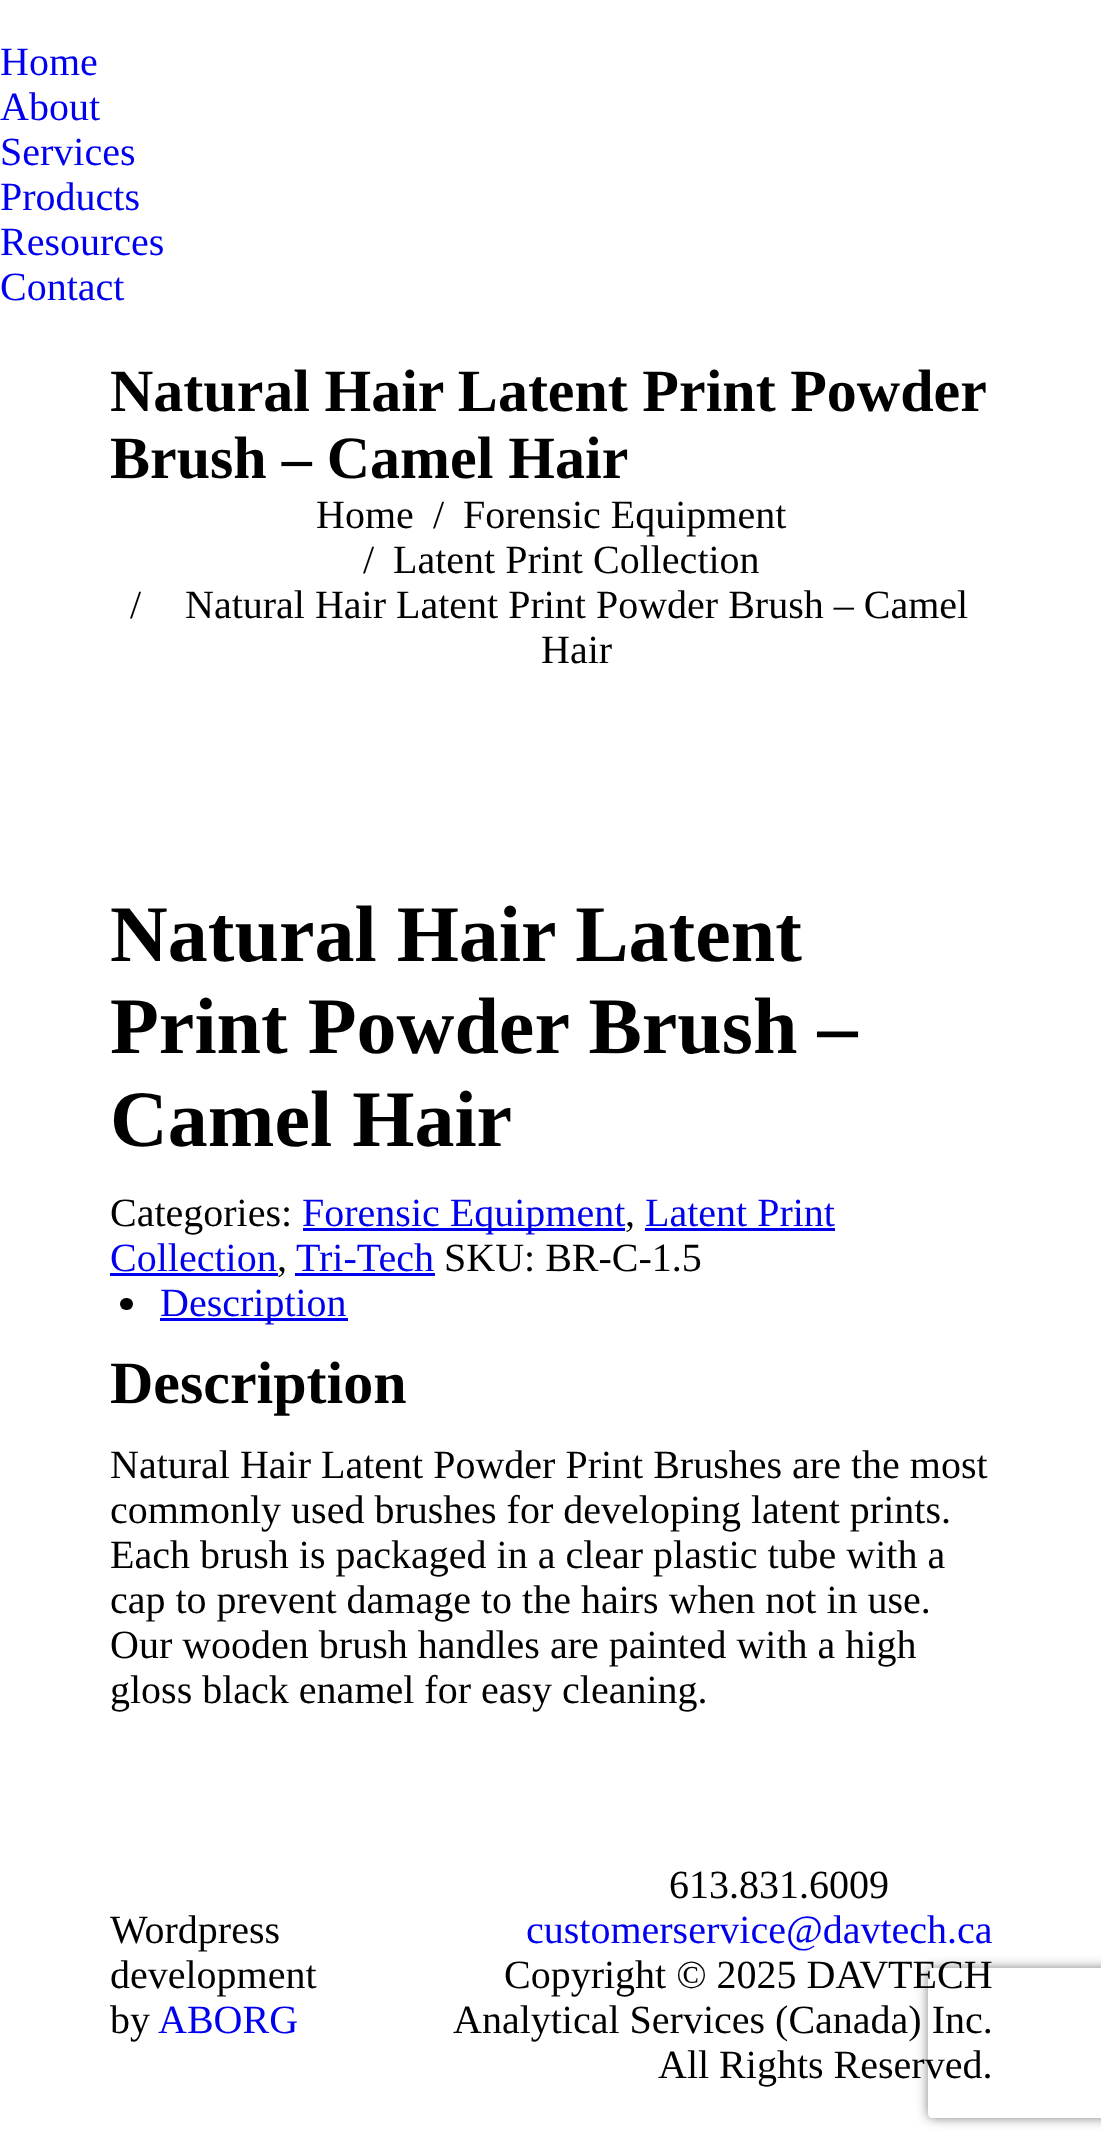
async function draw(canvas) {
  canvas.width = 1101
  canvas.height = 2152
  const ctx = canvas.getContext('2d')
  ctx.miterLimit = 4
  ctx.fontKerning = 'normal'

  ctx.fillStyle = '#fff'
  ctx.fillRect(0, 0, 1101, 2152)
  ctx.font = '40px Liberation Serif'
  ctx.fillStyle = '#00e'
  ctx.fillText('Home', 0, 75)
  ctx.fillText('About', 0, 120)
  ctx.fillText('Services', 0, 165)
  ctx.fillText('Products', 0, 210)
  ctx.fillText('Resources', 0, 255)
  ctx.fillText('Contact', 0, 300)
  ctx.wordSpacing = '-0.5px'
  ctx.font = 'bold 60px Liberation Serif'
  ctx.fillStyle = '#000'
  ctx.fillText('Natural Hair Latent Print Powder', 110, 411)
  ctx.wordSpacing = '0px'
  ctx.fillText('Brush – Camel Hair', 110, 478)
  ctx.font = '40px Liberation Serif'
  ctx.fillText('Home', 316, 528)
  ctx.fillText('/', 433, 528)
  ctx.fillText('Forensic Equipment', 463, 528)
  ctx.fillText('/', 363, 573)
  ctx.fillText('Latent Print Collection', 393, 573)
  ctx.fillText('/', 130, 618)
  ctx.fillText('Natural Hair Latent Print Powder Brush – Camel', 185, 618)
  ctx.fillText('Hair', 541, 663)
  ctx.font = 'bold 80px Liberation Serif'
  ctx.fillText('Natural Hair Latent', 110, 961)
  ctx.fillText('Print Powder Brush –', 110, 1053)
  ctx.fillText('Camel Hair', 110, 1146)
  ctx.font = '40px Liberation Serif'
  ctx.fillText('Categories:', 110, 1226)
  ctx.fillStyle = '#00e'
  ctx.fillRect(303, 1228, 322, 3)
  ctx.fillText('Forensic Equipment', 302, 1226)
  ctx.fillStyle = '#000'
  ctx.fillText(',', 625, 1226)
  ctx.fillStyle = '#00e'
  ctx.fillRect(645, 1228, 190, 3)
  ctx.fillText('Latent Print', 645, 1226)
  ctx.fillText('Collection', 110, 1271)
  ctx.fillStyle = '#000'
  ctx.fillText(',', 277, 1271)
  ctx.fillStyle = '#00e'
  ctx.fillRect(110, 1273, 168, 3)
  ctx.fillRect(295, 1273, 140, 3)
  ctx.fillText('Tri-Tech', 296, 1271)
  ctx.fillStyle = '#000'
  ctx.fillText('SKU: BR-C-1.5', 444, 1271)
  ctx.beginPath()
  ctx.roundRect(120, 1298, 13, 12, 6)
  ctx.fill()
  ctx.fillStyle = '#00e'
  ctx.fillRect(160, 1318, 188, 3)
  ctx.fillText('Description', 160, 1316)
  ctx.font = 'bold 60px Liberation Serif'
  ctx.fillStyle = '#000'
  ctx.fillText('Description', 110, 1403)
  ctx.font = '40px Liberation Serif'
  ctx.fillText('Natural Hair Latent Powder Print Brushes are the most', 110, 1478)
  ctx.fillText('commonly used brushes for developing latent prints.', 110, 1523)
  ctx.fillText('Each brush is packaged in a clear plastic tube with a', 110, 1568)
  ctx.fillText('cap to prevent damage to the hairs when not in use.', 110, 1613)
  ctx.fillText('Our wooden brush handles are painted with a high', 110, 1658)
  ctx.fillText('gloss black enamel for easy cleaning.', 110, 1703)
  ctx.fillText('Wordpress', 110, 1943)
  ctx.fillText('development', 110, 1988)
  ctx.fillText('by', 110, 2033)
  ctx.fillStyle = '#00e'
  ctx.fillText('ABORG', 158, 2033)
  ctx.fillStyle = '#000'
  ctx.fillText('613.831.6009', 669, 1898)
  ctx.save()
  ctx.beginPath()
  ctx.moveTo(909, 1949)
  ctx.lineTo(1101, 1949)
  ctx.lineTo(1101, 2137)
  ctx.lineTo(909, 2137)
  ctx.closePath()
  ctx.moveTo(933, 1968)
  ctx.lineTo(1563, 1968)
  ctx.bezierCurveTo(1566, 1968, 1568, 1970, 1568, 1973)
  ctx.lineTo(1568, 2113)
  ctx.bezierCurveTo(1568, 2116, 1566, 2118, 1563, 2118)
  ctx.lineTo(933, 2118)
  ctx.bezierCurveTo(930, 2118, 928, 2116, 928, 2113)
  ctx.lineTo(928, 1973)
  ctx.bezierCurveTo(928, 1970, 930, 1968, 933, 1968)
  ctx.closePath()
  ctx.clip('evenodd')
  ctx.fillStyle = '#808080'
  ctx.filter = 'blur(6px)'
  ctx.beginPath()
  ctx.roundRect(928, 1968, 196, 150, 5)
  ctx.fill()
  ctx.filter = 'none'
  ctx.restore()
  ctx.fillStyle = '#00e'
  ctx.fillText('customerservice@davtech.ca', 526, 1943)
  ctx.fillStyle = '#000'
  ctx.fillText('Copyright © 2025 DAVTECH', 504, 1988)
  ctx.fillText('Analytical Services (Canada) Inc.', 453, 2033)
  ctx.fillText('All Rights Reserved.', 658, 2078)
}

draw(document.querySelector('canvas'))
